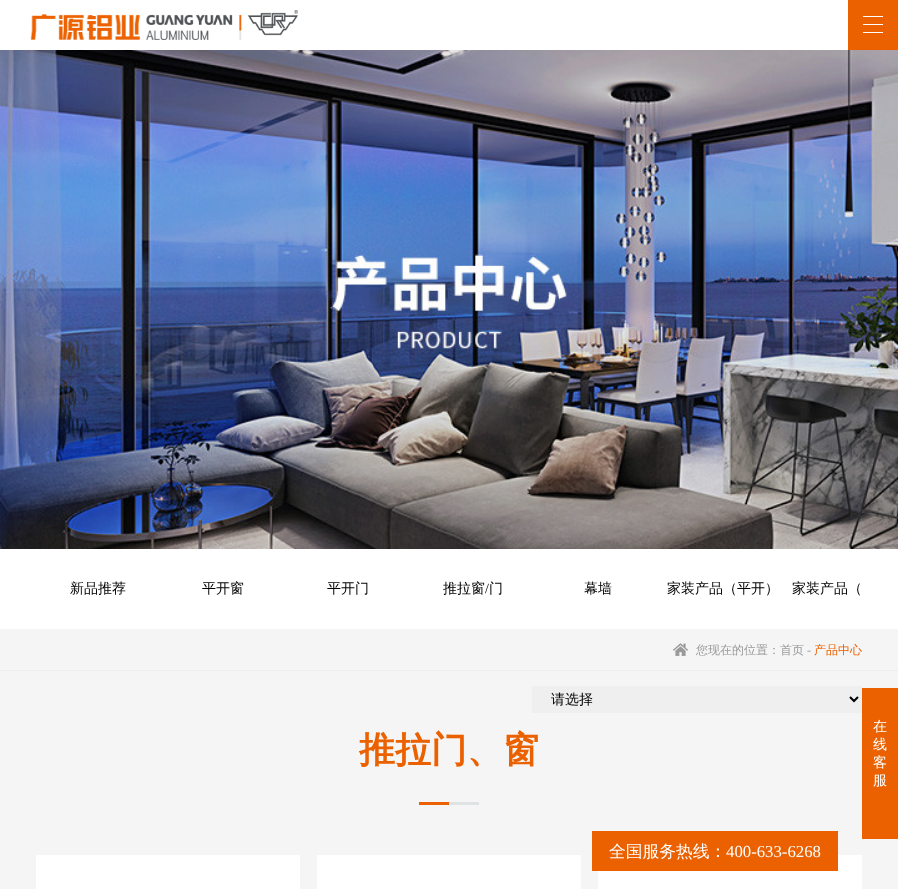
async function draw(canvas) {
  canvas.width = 898
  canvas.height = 889
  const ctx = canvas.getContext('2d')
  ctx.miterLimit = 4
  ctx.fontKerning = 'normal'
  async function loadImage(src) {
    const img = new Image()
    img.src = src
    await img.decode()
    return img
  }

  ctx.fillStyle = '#fff'
  ctx.fillRect(0, 0, 898, 889)
  ctx.drawImage(await loadImage('image0.png'), 0, 50, 898, 499)
  ctx.fillStyle = '#f5f5f5'
  ctx.fillRect(0, 629, 898, 260)
  ctx.font = '500 14px WenQuanYi Zen Hei'
  ctx.fillStyle = '#000'
  ctx.fillText('新品推荐', 70, 593)
  ctx.fillText('平开窗', 202, 593)
  ctx.fillText('平开门', 327, 593)
  ctx.fillText('推拉窗', 443, 593)
  ctx.font = '14px Liberation Serif'
  ctx.fillText('/', 485, 593)
  ctx.font = '500 14px WenQuanYi Zen Hei'
  ctx.fillText('门', 489, 593)
  ctx.fillText('幕墙', 584, 593)
  ctx.fillText('家装产品（平开）', 667, 593)
  ctx.fillText('家装产品（', 792, 593)
  ctx.fillStyle = '#eee'
  ctx.fillRect(0, 670, 898, 1)
  ctx.drawImage(await loadImage('image1.png'), 673, 643, 15, 13)
  ctx.font = '500 12px WenQuanYi Zen Hei'
  ctx.fillStyle = '#999'
  ctx.fillText('您现在的位置：首页', 696, 654)
  ctx.font = '12px Liberation Serif'
  ctx.fillText('-', 807, 654)
  ctx.font = '500 12px WenQuanYi Zen Hei'
  ctx.fillStyle = '#eb6100'
  ctx.fillText('产品中心', 814, 654)
  ctx.fillStyle = '#efefef'
  ctx.fillRect(532, 686, 330, 27)
  ctx.beginPath()
  ctx.moveTo(850, 697)
  ctx.lineTo(854, 701)
  ctx.lineTo(858, 697)
  ctx.strokeStyle = '#000'
  ctx.lineWidth = 2
  ctx.stroke()
  ctx.font = '500 14px WenQuanYi Zen Hei'
  ctx.fillStyle = '#000'
  ctx.fillText('请选择', 551, 704)
  ctx.font = 'bold 36px WenQuanYi Zen Hei'
  ctx.fillStyle = '#eb6100'
  ctx.fillText('推拉门、窗', 359, 762)
  ctx.fillRect(419, 802, 30, 3)
  ctx.fillStyle = '#e0e3e4'
  ctx.fillRect(449, 802, 30, 3)
  ctx.fillStyle = '#fff'
  ctx.fillRect(36, 855, 264, 34)
  ctx.fillRect(317, 855, 264, 34)
  ctx.fillRect(598, 855, 264, 34)
  ctx.fillStyle = '#eb6100'
  ctx.fillRect(862, 688, 36, 151)
  ctx.font = '500 14px WenQuanYi Zen Hei'
  ctx.fillStyle = '#fff'
  ctx.fillText('在', 873, 731)
  ctx.fillText('线', 873, 749)
  ctx.fillText('客', 873, 767)
  ctx.fillText('服', 873, 785)
  ctx.drawImage(await loadImage('image2.png'), 30, 10, 268, 30)
  ctx.fillStyle = '#eb6100'
  ctx.fillRect(848, 0, 50, 50)
  ctx.fillStyle = '#fff'
  ctx.fillRect(863, 24, 20, 1)
  ctx.fillRect(863, 16, 20, 1)
  ctx.fillRect(863, 32, 20, 1)
  ctx.fillStyle = '#eb6100'
  ctx.fillRect(592, 831, 246, 40)
  ctx.font = '500 16.75px WenQuanYi Zen Hei'
  ctx.fillStyle = '#fff'
  ctx.fillText('全国服务热线：', 609, 857)
  ctx.font = '16.75px Liberation Serif'
  ctx.fillText('400-633-6268', 726, 857)
}

draw(document.querySelector('canvas'))
